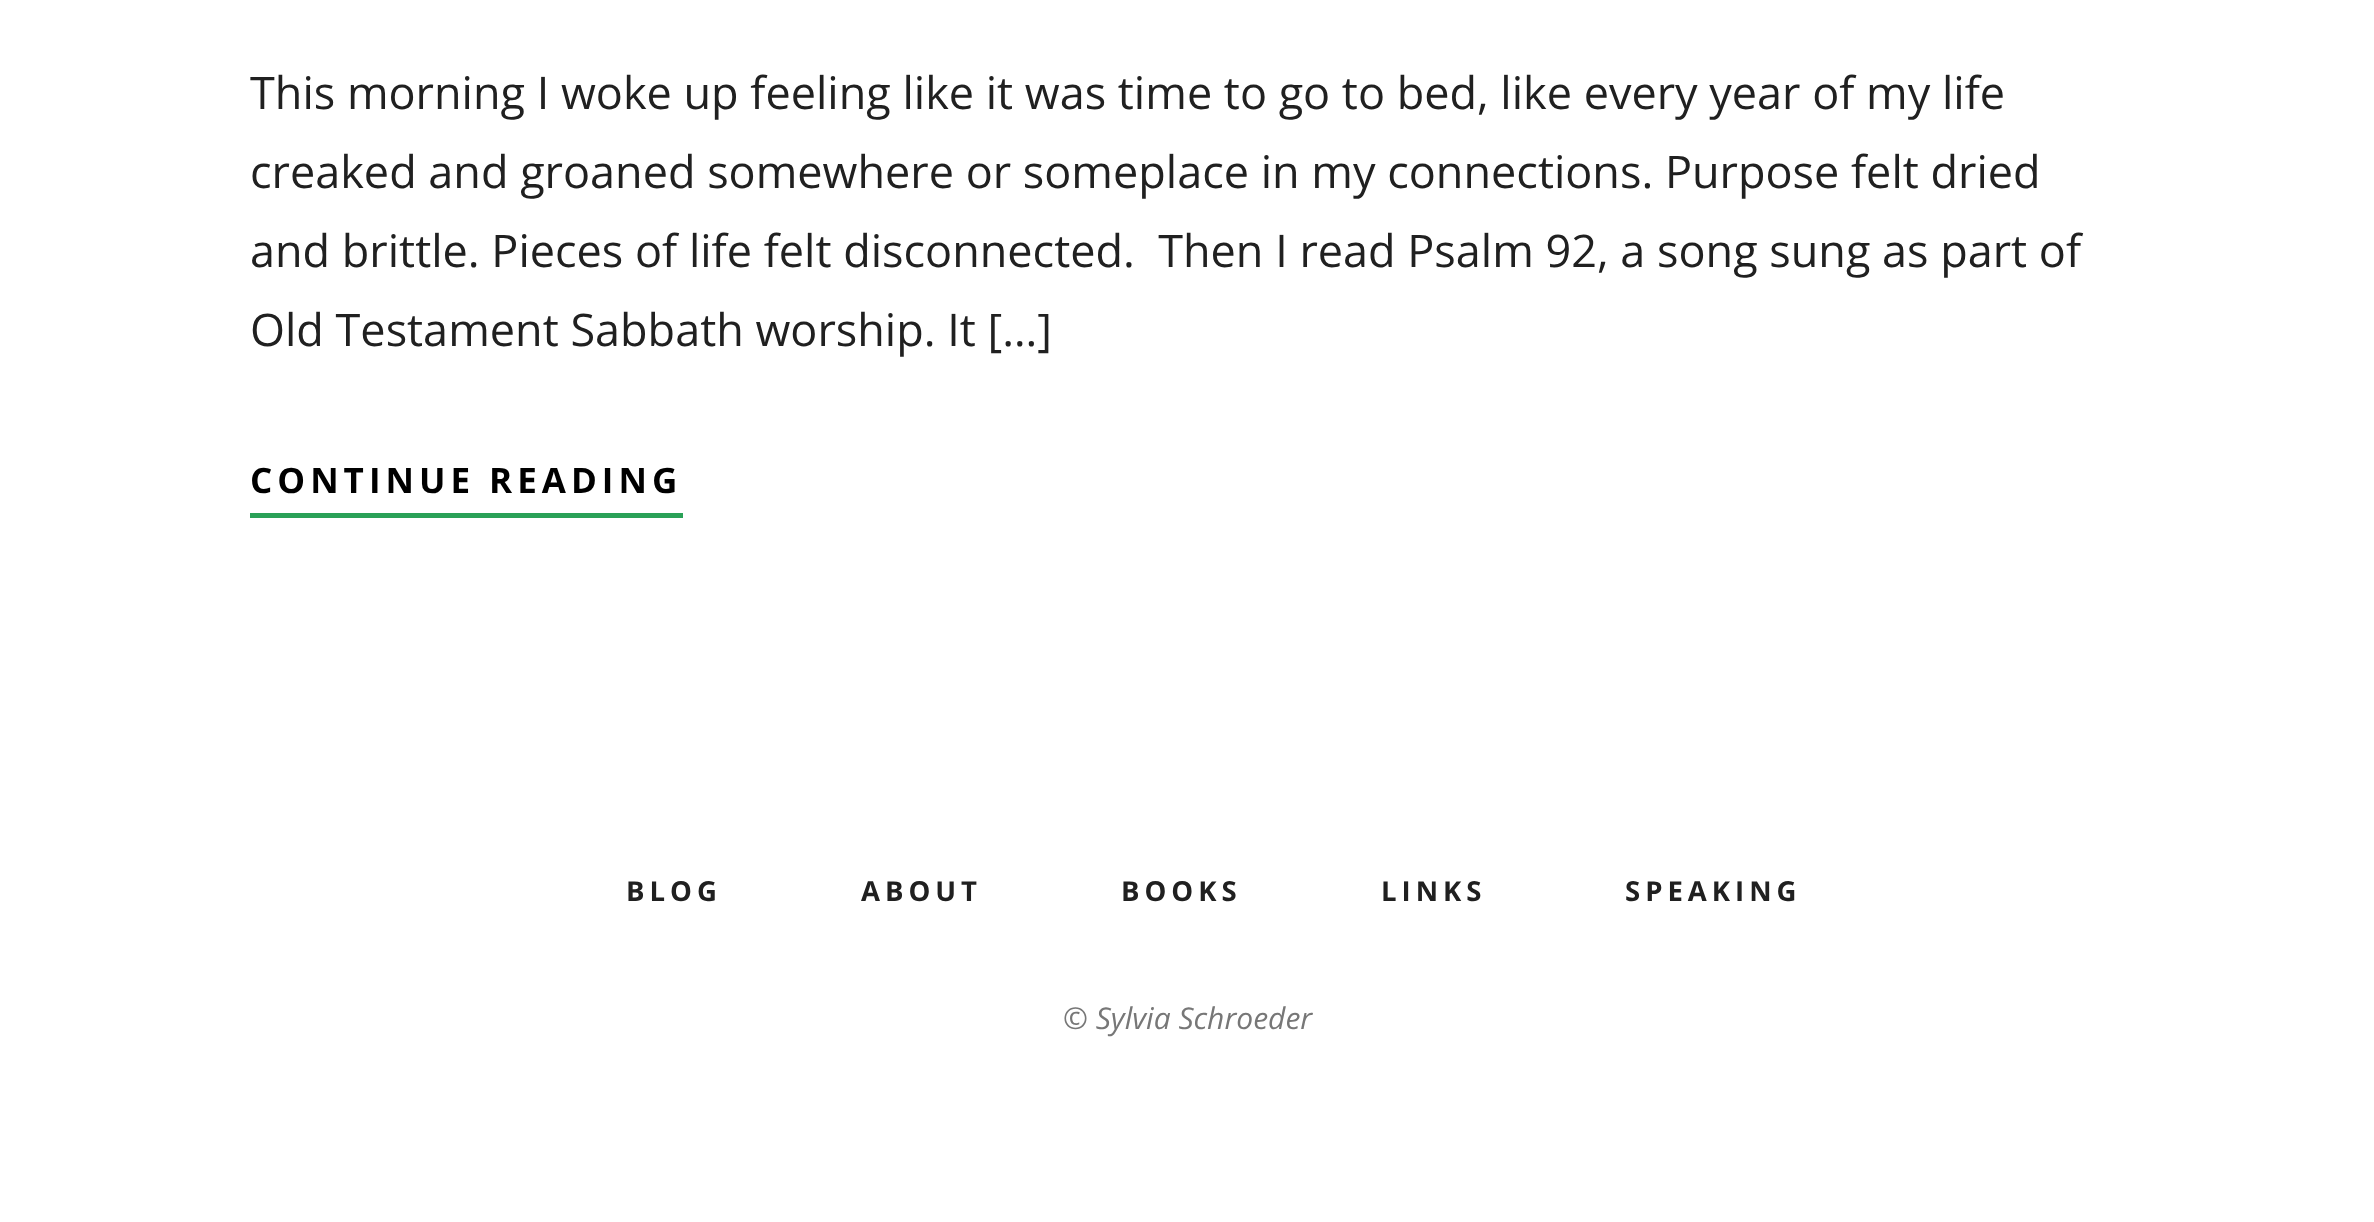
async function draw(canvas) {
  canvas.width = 2374
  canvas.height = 1222
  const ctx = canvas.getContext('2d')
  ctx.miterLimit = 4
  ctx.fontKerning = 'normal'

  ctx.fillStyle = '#fff'
  ctx.fillRect(0, 0, 2374, 1222)
  ctx.font = '45px Open Sans'
  ctx.fillStyle = '#202020'
  ctx.fillText('This morning I woke up feeling like it was time to go to bed, like every year of my life', 250, 109)
  ctx.fillText('creaked and groaned somewhere or someplace in my connections. Purpose felt dried', 250, 188)
  ctx.fillText('and brittle. Pieces of life felt disconnected.  Then I read Psalm 92, a song sung as part of', 250, 267)
  ctx.fillText('Old Testament Sabbath worship. It […]', 250, 346)
  ctx.fillStyle = '#2aa157'
  ctx.fillRect(250, 513, 433, 5)
  ctx.letterSpacing = '5px'
  ctx.font = 'bold 35px Open Sans'
  ctx.fillStyle = '#000'
  ctx.fillText('CONTINUE READING', 250, 493)
  ctx.font = 'bold 27.5px Open Sans'
  ctx.fillStyle = '#202020'
  ctx.fillText('BLOG', 626, 901)
  ctx.fillText('ABOUT', 861, 901)
  ctx.fillText('BOOKS', 1121, 901)
  ctx.fillText('LINKS', 1381, 901)
  ctx.fillText('SPEAKING', 1625, 901)
  ctx.letterSpacing = '0px'
  ctx.font = 'italic 30px Open Sans'
  ctx.fillStyle = '#777'
  ctx.fillText('© Sylvia Schroeder', 1063, 1029)
}

draw(document.querySelector('canvas'))
